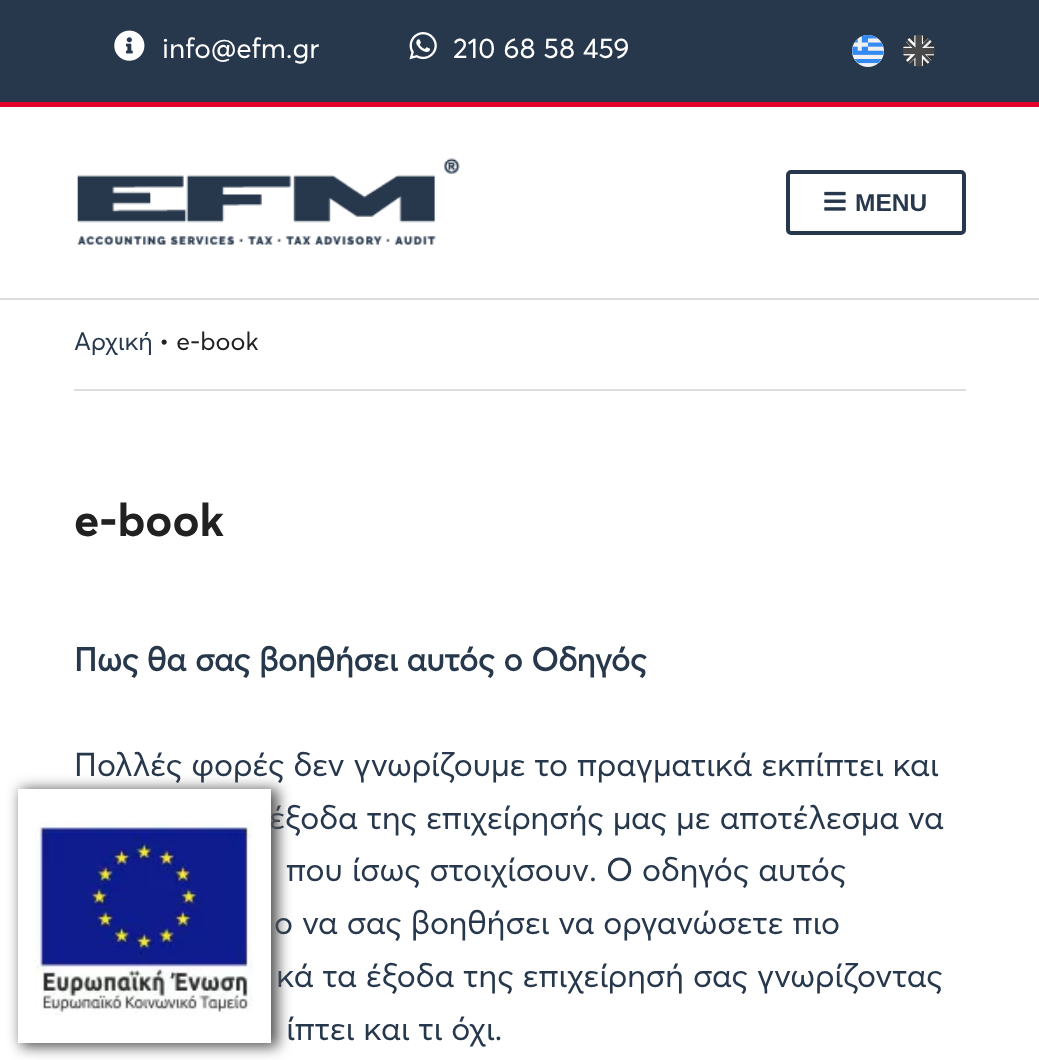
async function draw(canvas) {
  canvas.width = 1039
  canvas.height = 1060
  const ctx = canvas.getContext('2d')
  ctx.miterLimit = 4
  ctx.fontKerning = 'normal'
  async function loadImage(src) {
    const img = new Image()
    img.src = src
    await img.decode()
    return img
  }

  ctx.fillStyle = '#fff'
  ctx.fillRect(0, 0, 1039, 1060)
  ctx.fillStyle = '#27384d'
  ctx.fillRect(0, 0, 1039, 102)
  ctx.fillStyle = '#e3002a'
  ctx.fillRect(0, 102, 1039, 5)
  ctx.drawImage(await loadImage('image0.png'), 114, 30, 31, 31)
  ctx.font = '28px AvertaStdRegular'
  ctx.fillStyle = '#fff'
  ctx.fillText('info@efm.gr', 162, 58)
  ctx.drawImage(await loadImage('image1.png'), 409, 32, 28, 28)
  ctx.fillText('210 68 58 459', 453, 58)
  ctx.drawImage(await loadImage('image2.png'), 852, 35, 32, 32)
  ctx.drawImage(await loadImage('image3.png'), 903, 35, 32, 32)
  ctx.fillStyle = '#ddd'
  ctx.fillRect(0, 298, 1039, 2)
  ctx.drawImage(await loadImage('image4.png'), 77, 158, 383, 87)
  ctx.beginPath()
  ctx.roundRect(788, 172, 176, 61, 3)
  ctx.strokeStyle = '#27384d'
  ctx.lineWidth = 4
  ctx.stroke()
  ctx.drawImage(await loadImage('image5.png'), 824, 191, 22, 20)
  ctx.font = 'bold 24.5px Liberation Sans'
  ctx.fillStyle = '#27384d'
  ctx.fillText('MENU', 855, 211)
  ctx.fillStyle = '#ddd'
  ctx.fillRect(74, 389, 892, 2)
  ctx.font = '25px AvertaStdRegular'
  ctx.fillStyle = '#27384d'
  ctx.fillText('Αρχική', 74, 350)
  ctx.fillStyle = '#212121'
  ctx.fillText('• e-book', 159, 350)
  ctx.font = 'bold 45.5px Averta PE'
  ctx.fillText('e-book', 74, 536)
  ctx.font = 'bold 32.7px AvertaStdRegular'
  ctx.fillStyle = '#27384d'
  ctx.fillText('Πως θα σας βοηθήσει αυτός ο Οδηγός', 74, 671)
  ctx.font = '32.7px AvertaStdRegular'
  ctx.fillText('Πολλές φορές δεν γνωρίζουμε το πραγματικά εκπίπτει και', 74, 776)
  ctx.fillText('έξοδα της επιχείρησής μας με αποτέλεσμα να', 269, 829)
  ctx.fillText('που ίσως στοιχίσουν. Ο οδηγός αυτός', 286, 881)
  ctx.fillText('ο να σας βοηθήσει να οργανώσετε πιο', 274, 934)
  ctx.fillText('κά τα έξοδα της επιχείρησή σας γνωρίζοντας', 276, 987)
  ctx.fillText('ίπτει και τι όχι.', 286, 1040)
  ctx.fillStyle = '#565656'
  ctx.filter = 'blur(7px)'
  ctx.beginPath()
  ctx.rect(21, 789, 257, 258)
  ctx.fill()
  ctx.filter = 'none'
  ctx.fillStyle = '#fff'
  ctx.fillRect(18, 789, 253, 254)
  ctx.drawImage(await loadImage('image6.png'), 35, 821, 218, 194)
}

draw(document.querySelector('canvas'))
